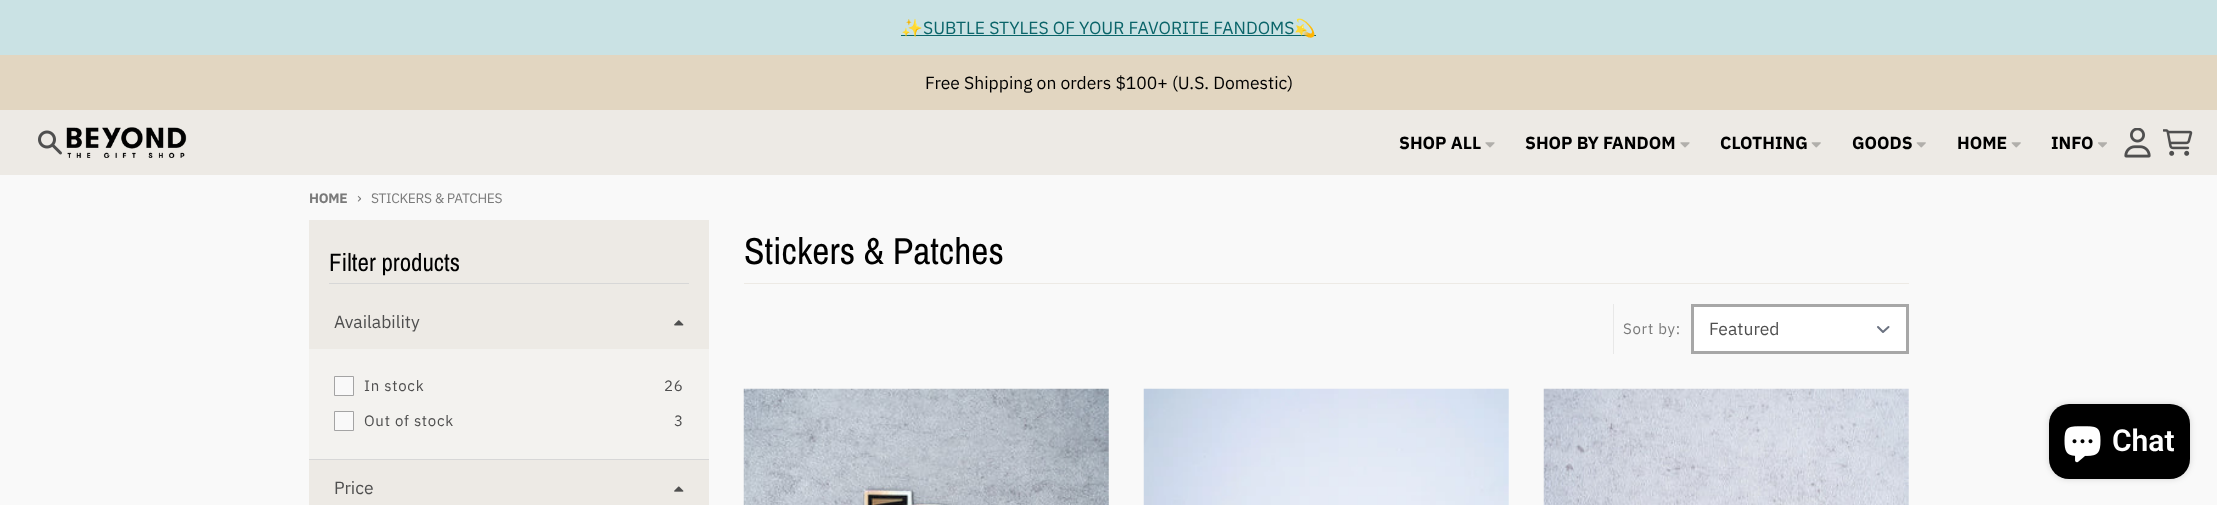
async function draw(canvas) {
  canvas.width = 2217
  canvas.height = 505
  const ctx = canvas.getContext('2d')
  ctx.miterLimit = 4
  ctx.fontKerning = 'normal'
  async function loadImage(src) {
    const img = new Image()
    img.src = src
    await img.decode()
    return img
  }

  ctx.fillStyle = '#f9f9f9'
  ctx.fillRect(0, 0, 2217, 505)
  ctx.fillStyle = '#cae2e4'
  ctx.fillRect(0, 0, 2217, 55)
  ctx.fillStyle = '#0a6469'
  ctx.fillRect(901, 35, 415, 1)
  ctx.font = '17.5px Noto Color Emoji'
  ctx.fillText('✨', 901, 34)
  ctx.font = '17.5px IBM Plex Sans'
  ctx.fillText('SUBTLE STYLES OF YOUR FAVORITE FANDOMS', 923, 34)
  ctx.font = '17.5px Noto Color Emoji'
  ctx.fillText('💫', 1294, 34)
  ctx.fillStyle = '#e2d6c1'
  ctx.fillRect(0, 55, 2217, 55)
  ctx.font = '17.5px IBM Plex Sans'
  ctx.fillStyle = '#000'
  ctx.fillText('Free Shipping on orders $100+ (U.S. Domestic)', 925, 89)
  ctx.fillStyle = '#edeae5'
  ctx.fillRect(0, 110, 2217, 65)
  ctx.drawImage(await loadImage('image0.png'), 38, 130, 24, 25)
  ctx.drawImage(await loadImage('image1.png'), 66, 127, 121, 31)
  ctx.font = 'bold 17.5px IBM Plex Sans'
  ctx.fillStyle = '#000'
  ctx.fillText('SHOP ALL', 1399, 149)
  ctx.drawImage(await loadImage('image2.png'), 1485, 142, 10, 6)
  ctx.fillText('SHOP BY FANDOM', 1525, 149)
  ctx.drawImage(await loadImage('image2.png'), 1680, 142, 10, 6)
  ctx.fillText('CLOTHING', 1720, 149)
  ctx.drawImage(await loadImage('image3.png'), 1811, 142, 10, 6)
  ctx.fillText('GOODS', 1852, 149)
  ctx.drawImage(await loadImage('image3.png'), 1916, 142, 10, 6)
  ctx.fillText('HOME', 1957, 149)
  ctx.drawImage(await loadImage('image3.png'), 2011, 142, 10, 6)
  ctx.fillText('INFO', 2051, 149)
  ctx.drawImage(await loadImage('image4.png'), 2098, 142, 9, 6)
  ctx.drawImage(await loadImage('image5.png'), 2124, 128, 27, 30)
  ctx.drawImage(await loadImage('image6.png'), 2163, 129, 30, 27)
  ctx.letterSpacing = '-0.3px'
  ctx.font = 'bold 13.75px IBM Plex Sans'
  ctx.fillStyle = '#7a7a7a'
  ctx.fillText('HOME', 309, 203)
  ctx.font = '15px IBM Plex Sans'
  ctx.fillText('›', 357, 203)
  ctx.font = '13.75px IBM Plex Sans'
  ctx.fillText('STICKERS & PATCHES', 371, 203)
  ctx.fillStyle = '#edeae5'
  ctx.fillRect(309, 220, 400, 285)
  ctx.fillStyle = '#d7d7d7'
  ctx.fillRect(329, 283, 360, 1)
  ctx.letterSpacing = '0px'
  ctx.font = '25px Archivo Narrow'
  ctx.fillStyle = '#000'
  ctx.fillText('Filter products', 329, 271)
  ctx.font = '17.5px IBM Plex Sans'
  ctx.fillStyle = '#4f4f4f'
  ctx.fillText('Availability', 334, 328)
  ctx.drawImage(await loadImage('image7.png'), 674, 320, 10, 6)
  ctx.fillStyle = '#f3f2ef'
  ctx.fillRect(309, 349, 400, 110)
  ctx.fillStyle = '#f9f9f9'
  ctx.beginPath()
  ctx.rect(334.5, 376.5, 19, 19)
  ctx.fill()
  ctx.strokeStyle = '#a4a4a4'
  ctx.stroke()
  ctx.letterSpacing = '0.75px'
  ctx.font = '15px IBM Plex Sans'
  ctx.fillStyle = '#4f4f4f'
  ctx.fillText('In stock', 364, 391)
  ctx.fillText('26', 664, 391)
  ctx.fillStyle = '#f9f9f9'
  ctx.beginPath()
  ctx.rect(334.5, 411.5, 19, 19)
  ctx.fill()
  ctx.stroke()
  ctx.fillStyle = '#4f4f4f'
  ctx.fillText('Out of stock', 364, 426)
  ctx.fillText('3', 674, 426)
  ctx.fillStyle = '#d7d7d7'
  ctx.fillRect(309, 459, 400, 1)
  ctx.letterSpacing = '0px'
  ctx.font = '17.5px IBM Plex Sans'
  ctx.fillStyle = '#4f4f4f'
  ctx.fillText('Price', 334, 494)
  ctx.drawImage(await loadImage('image8.png'), 674, 486, 10, 6)
  ctx.fillStyle = '#edeae5'
  ctx.fillRect(744, 283, 1165, 1)
  ctx.font = '37.5px Archivo Narrow'
  ctx.fillStyle = '#000'
  ctx.fillText('Stickers & Patches', 744, 264)
  ctx.fillStyle = '#e8e8e8'
  ctx.fillRect(1613, 304, 1, 50)
  ctx.letterSpacing = '0.75px'
  ctx.font = '15px IBM Plex Sans'
  ctx.fillStyle = '#7a7a7a'
  ctx.fillText('Sort by:', 1623, 334)
  ctx.fillStyle = '#fff'
  ctx.fillRect(1694, 307, 212, 44)
  ctx.beginPath()
  ctx.moveTo(1878, 327)
  ctx.lineTo(1883, 332)
  ctx.lineTo(1888.5, 327)
  ctx.strokeStyle = '#6b7280'
  ctx.lineWidth = 2
  ctx.lineCap = 'round'
  ctx.lineJoin = 'round'
  ctx.stroke()
  ctx.strokeStyle = '#a7a7a7'
  ctx.lineWidth = 3
  ctx.lineJoin = 'miter'
  ctx.strokeRect(1692.5, 305.5, 215, 47)
  ctx.letterSpacing = '0px'
  ctx.font = '17.5px IBM Plex Sans'
  ctx.fillStyle = '#4f4f4f'
  ctx.fillText('Featured', 1709, 335)
  ctx.drawImage(await loadImage('image9.png'), 743, 388, 366, 117)
  ctx.drawImage(await loadImage('image10.png'), 1143, 388, 366, 117)
  ctx.drawImage(await loadImage('image11.png'), 1543, 388, 366, 117)
  ctx.fillStyle = '#00000026'
  ctx.filter = 'blur(3px)'
  ctx.beginPath()
  ctx.roundRect(2049, 404, 141, 75, 20)
  ctx.fill()
  ctx.filter = 'none'
  ctx.fillStyle = '#000'
  ctx.beginPath()
  ctx.roundRect(2049, 404, 141, 75, 20)
  ctx.fill()
  ctx.drawImage(await loadImage('image12.png'), 2064, 426, 37, 37)
  ctx.font = '600 30px Roboto'
  ctx.fillStyle = '#fff'
  ctx.fillText('Chat', 2112, 451)
}

draw(document.querySelector('canvas'))
